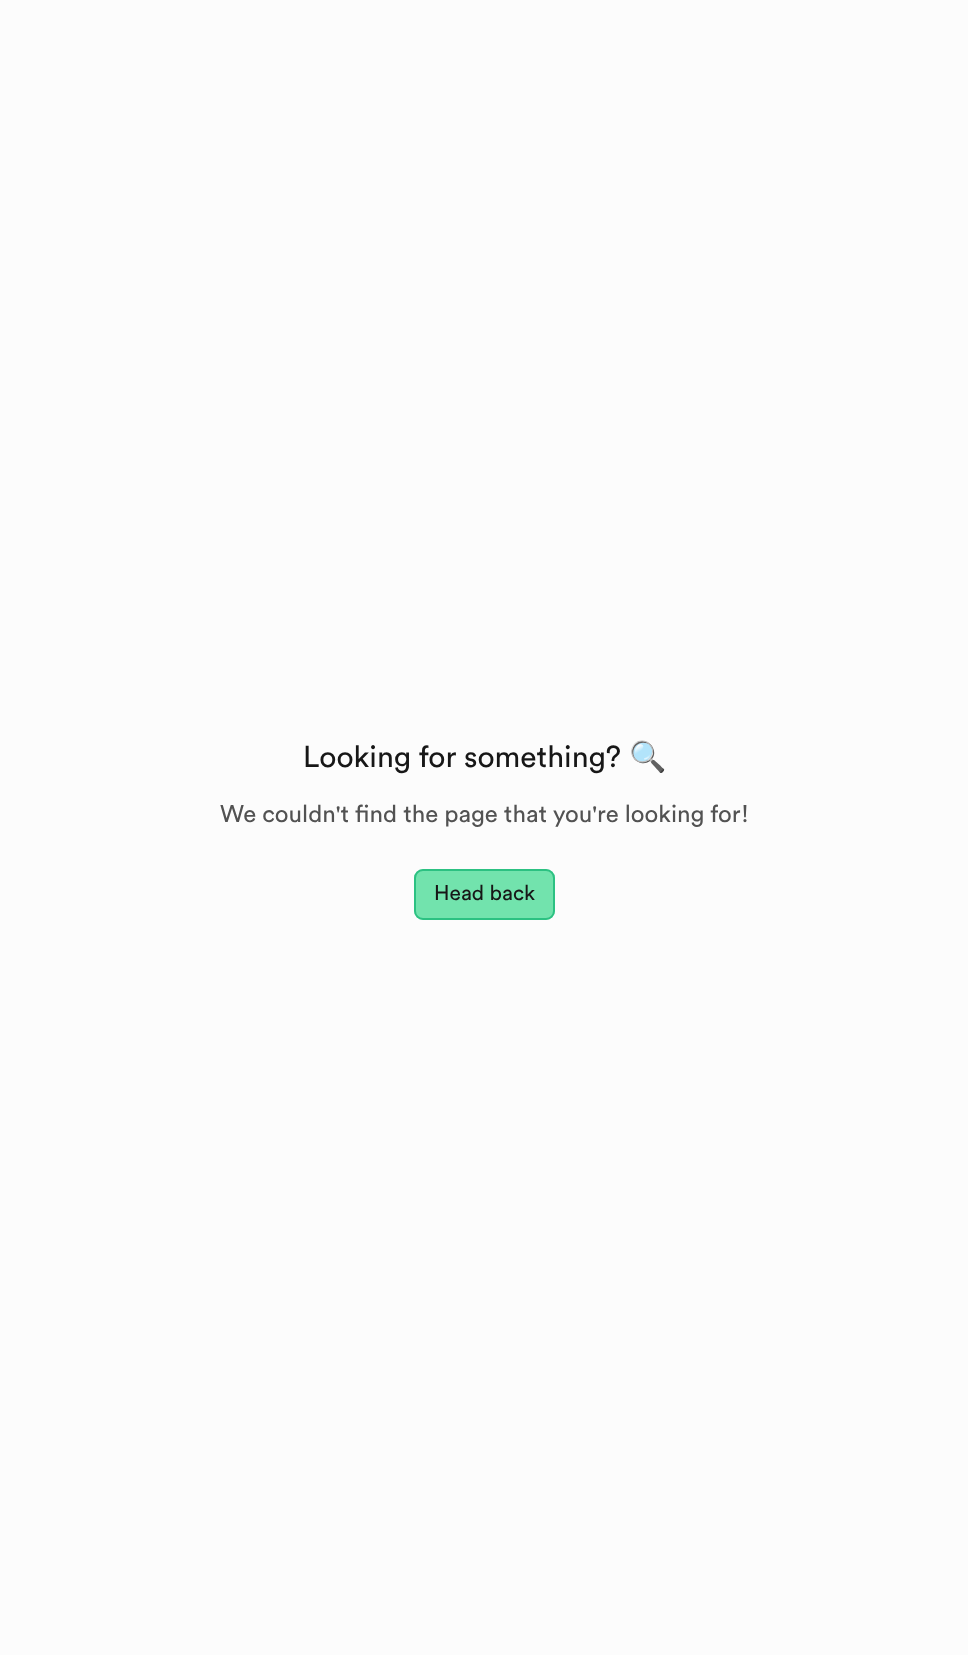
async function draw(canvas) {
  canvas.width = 968
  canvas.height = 1655
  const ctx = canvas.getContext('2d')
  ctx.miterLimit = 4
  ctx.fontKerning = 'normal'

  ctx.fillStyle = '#fcfcfc'
  ctx.fillRect(0, 0, 968, 1655)
  ctx.font = '30px Circular'
  ctx.fillStyle = '#171717'
  ctx.fillText('Looking for something?', 303, 767)
  ctx.font = '30px Noto Color Emoji'
  ctx.fillText('🔍', 629, 767)
  ctx.font = '24px Circular'
  ctx.fillStyle = '#525252'
  ctx.fillText('We couldn\'t find the page that you\'re looking for!', 220, 822)
  ctx.fillStyle = '#72e3ad'
  ctx.beginPath()
  ctx.roundRect(414, 869, 141, 51, 9)
  ctx.fill()
  ctx.beginPath()
  ctx.roundRect(415, 870, 139, 49, 8)
  ctx.strokeStyle = '#16b674bf'
  ctx.lineWidth = 2
  ctx.stroke()
  ctx.font = '21px Circular'
  ctx.fillStyle = '#171717'
  ctx.fillText('Head back', 434, 900)
}

draw(document.querySelector('canvas'))
